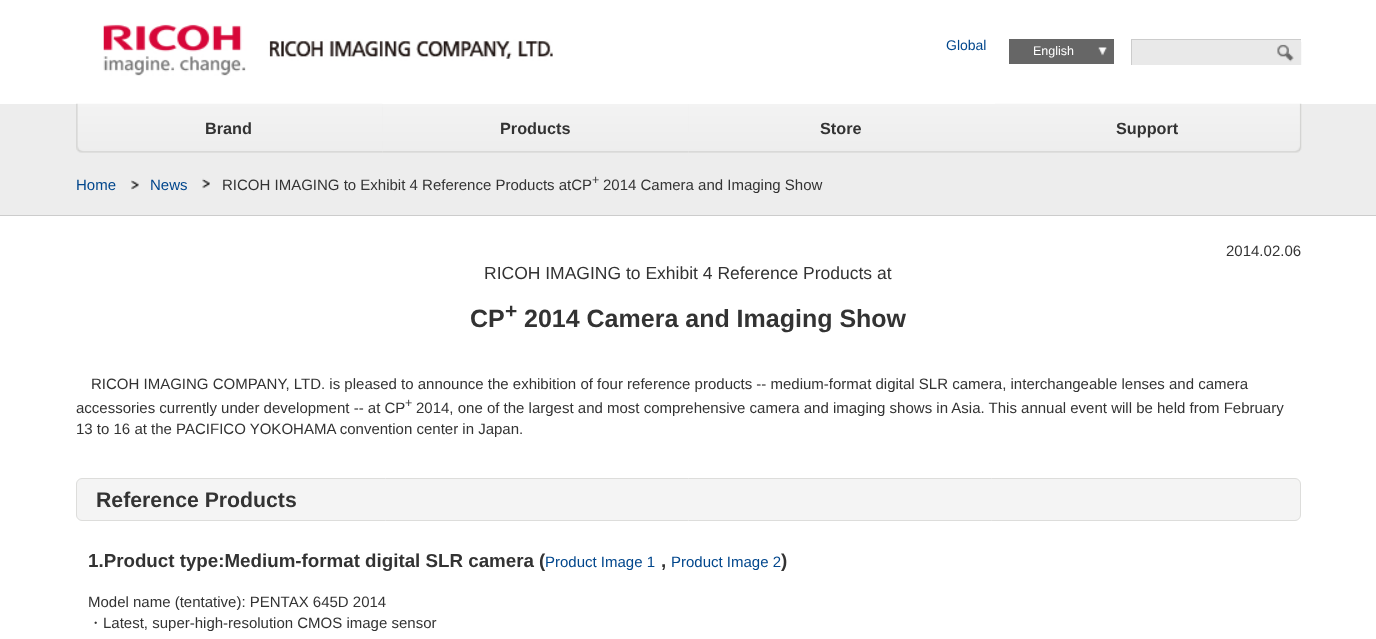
async function draw(canvas) {
  canvas.width = 1376
  canvas.height = 639
  const ctx = canvas.getContext('2d')
  ctx.miterLimit = 4
  ctx.fontKerning = 'normal'
  async function loadImage(src) {
    const img = new Image()
    img.src = src
    await img.decode()
    return img
  }

  ctx.fillStyle = '#fff'
  ctx.fillRect(0, 0, 1376, 639)
  ctx.drawImage(await loadImage('image0.png'), 103, 24, 450, 52)
  ctx.font = '14px Liberation Sans'
  ctx.fillStyle = '#00468c'
  ctx.fillText('Global', 946, 50)
  ctx.fillStyle = '#666'
  ctx.fillRect(1009, 39, 105, 25)
  ctx.drawImage(await loadImage('image1.png'), 1098, 47, 9, 9)
  ctx.font = '12.5px Liberation Sans'
  ctx.fillStyle = '#fff'
  ctx.fillText('English', 1033, 55)
  ctx.fillStyle = '#e9e9e9'
  ctx.fillRect(1132, 40, 169, 25)
  ctx.fillStyle = '#ccc'
  ctx.fillRect(1131, 39, 170, 1)
  ctx.fillRect(1131, 39, 1, 26)
  ctx.drawImage(await loadImage('image2.png'), 1277, 42, 25, 23)
  ctx.fillStyle = '#ededed'
  ctx.fillRect(0, 104, 1376, 111)
  ctx.drawImage(await loadImage('image3.png'), 76, 103, 307, 50)
  ctx.font = 'bold 16.25px Liberation Sans'
  ctx.fillStyle = '#333'
  ctx.fillText('Brand', 205, 134)
  ctx.drawImage(await loadImage('image4.png'), 382, 104, 307, 49)
  ctx.fillText('Products', 500, 134)
  ctx.drawImage(await loadImage('image5.png'), 689, 104, 306, 49)
  ctx.fillText('Store', 820, 134)
  ctx.drawImage(await loadImage('image6.png'), 995, 103, 307, 50)
  ctx.fillText('Support', 1116, 134)
  ctx.font = '15px Liberation Sans'
  ctx.fillStyle = '#00468c'
  ctx.fillText('Home', 76, 190)
  ctx.drawImage(await loadImage('image7.png'), 131, 180, 8, 10)
  ctx.fillText('News', 150, 190)
  ctx.drawImage(await loadImage('image8.png'), 202, 178, 8, 11)
  ctx.fillStyle = '#333'
  ctx.fillText('RICOH IMAGING to Exhibit 4 Reference Products atCP', 222, 190)
  ctx.font = '12.5px Liberation Sans'
  ctx.fillText('+', 592, 184)
  ctx.font = '15px Liberation Sans'
  ctx.fillText('2014 Camera and Imaging Show', 603, 190)
  ctx.fillStyle = '#ccc'
  ctx.fillRect(0, 215, 1376, 1)
  ctx.fillStyle = '#333'
  ctx.fillText('2014.02.06', 1226, 256)
  ctx.font = '17.5px Liberation Sans'
  ctx.fillText('RICOH IMAGING to Exhibit 4 Reference Products at', 484, 279)
  ctx.font = 'bold 25px Liberation Sans'
  ctx.fillText('CP', 470, 327)
  ctx.font = 'bold 21px Liberation Sans'
  ctx.fillText('+', 505, 318)
  ctx.font = 'bold 25px Liberation Sans'
  ctx.fillText('2014 Camera and Imaging Show', 524, 327)
  ctx.font = '15px Liberation Sans'
  ctx.fillText('RICOH IMAGING COMPANY, LTD. is pleased to announce the exhibition of four reference products -- medium-format digital SLR camera, interchangeable lenses and camera', 91, 389)
  ctx.fillText('accessories currently under development -- at CP', 76, 413)
  ctx.font = '12.5px Liberation Sans'
  ctx.fillText('+', 405, 407)
  ctx.font = '15px Liberation Sans'
  ctx.fillText('2014, one of the largest and most comprehensive camera and imaging shows in Asia. This annual event will be held from February', 416, 413)
  ctx.fillText('13 to 16 at the PACIFICO YOKOHAMA convention center in Japan.', 76, 434)
  ctx.fillStyle = '#f4f4f4'
  ctx.beginPath()
  ctx.roundRect(76.5, 478.5, 1224, 42, 5.5)
  ctx.fill()
  ctx.strokeStyle = '#dddddb'
  ctx.stroke()
  ctx.font = 'bold 21.25px Liberation Sans'
  ctx.fillStyle = '#333'
  ctx.fillText('Reference Products', 96, 507)
  ctx.font = 'bold 18.75px Liberation Sans'
  ctx.fillText('1.Product type:Medium-format digital SLR camera (', 88, 567)
  ctx.font = '15px Liberation Sans'
  ctx.fillStyle = '#00468c'
  ctx.fillText('Product Image 1', 545, 567)
  ctx.font = 'bold 18.75px Liberation Sans'
  ctx.fillStyle = '#333'
  ctx.fillText(',', 661, 567)
  ctx.font = '15px Liberation Sans'
  ctx.fillStyle = '#00468c'
  ctx.fillText('Product Image 2', 671, 567)
  ctx.font = 'bold 18.75px Liberation Sans'
  ctx.fillStyle = '#333'
  ctx.fillText(')', 781, 567)
  ctx.font = '15px Liberation Sans'
  ctx.fillText('Model name (tentative): PENTAX 645D 2014', 88, 607)
  ctx.font = '500 15px WenQuanYi Zen Hei'
  ctx.fillText('・', 88, 628)
  ctx.font = '15px Liberation Sans'
  ctx.fillText('Latest, super-high-resolution CMOS image sensor', 103, 628)
}

draw(document.querySelector('canvas'))
